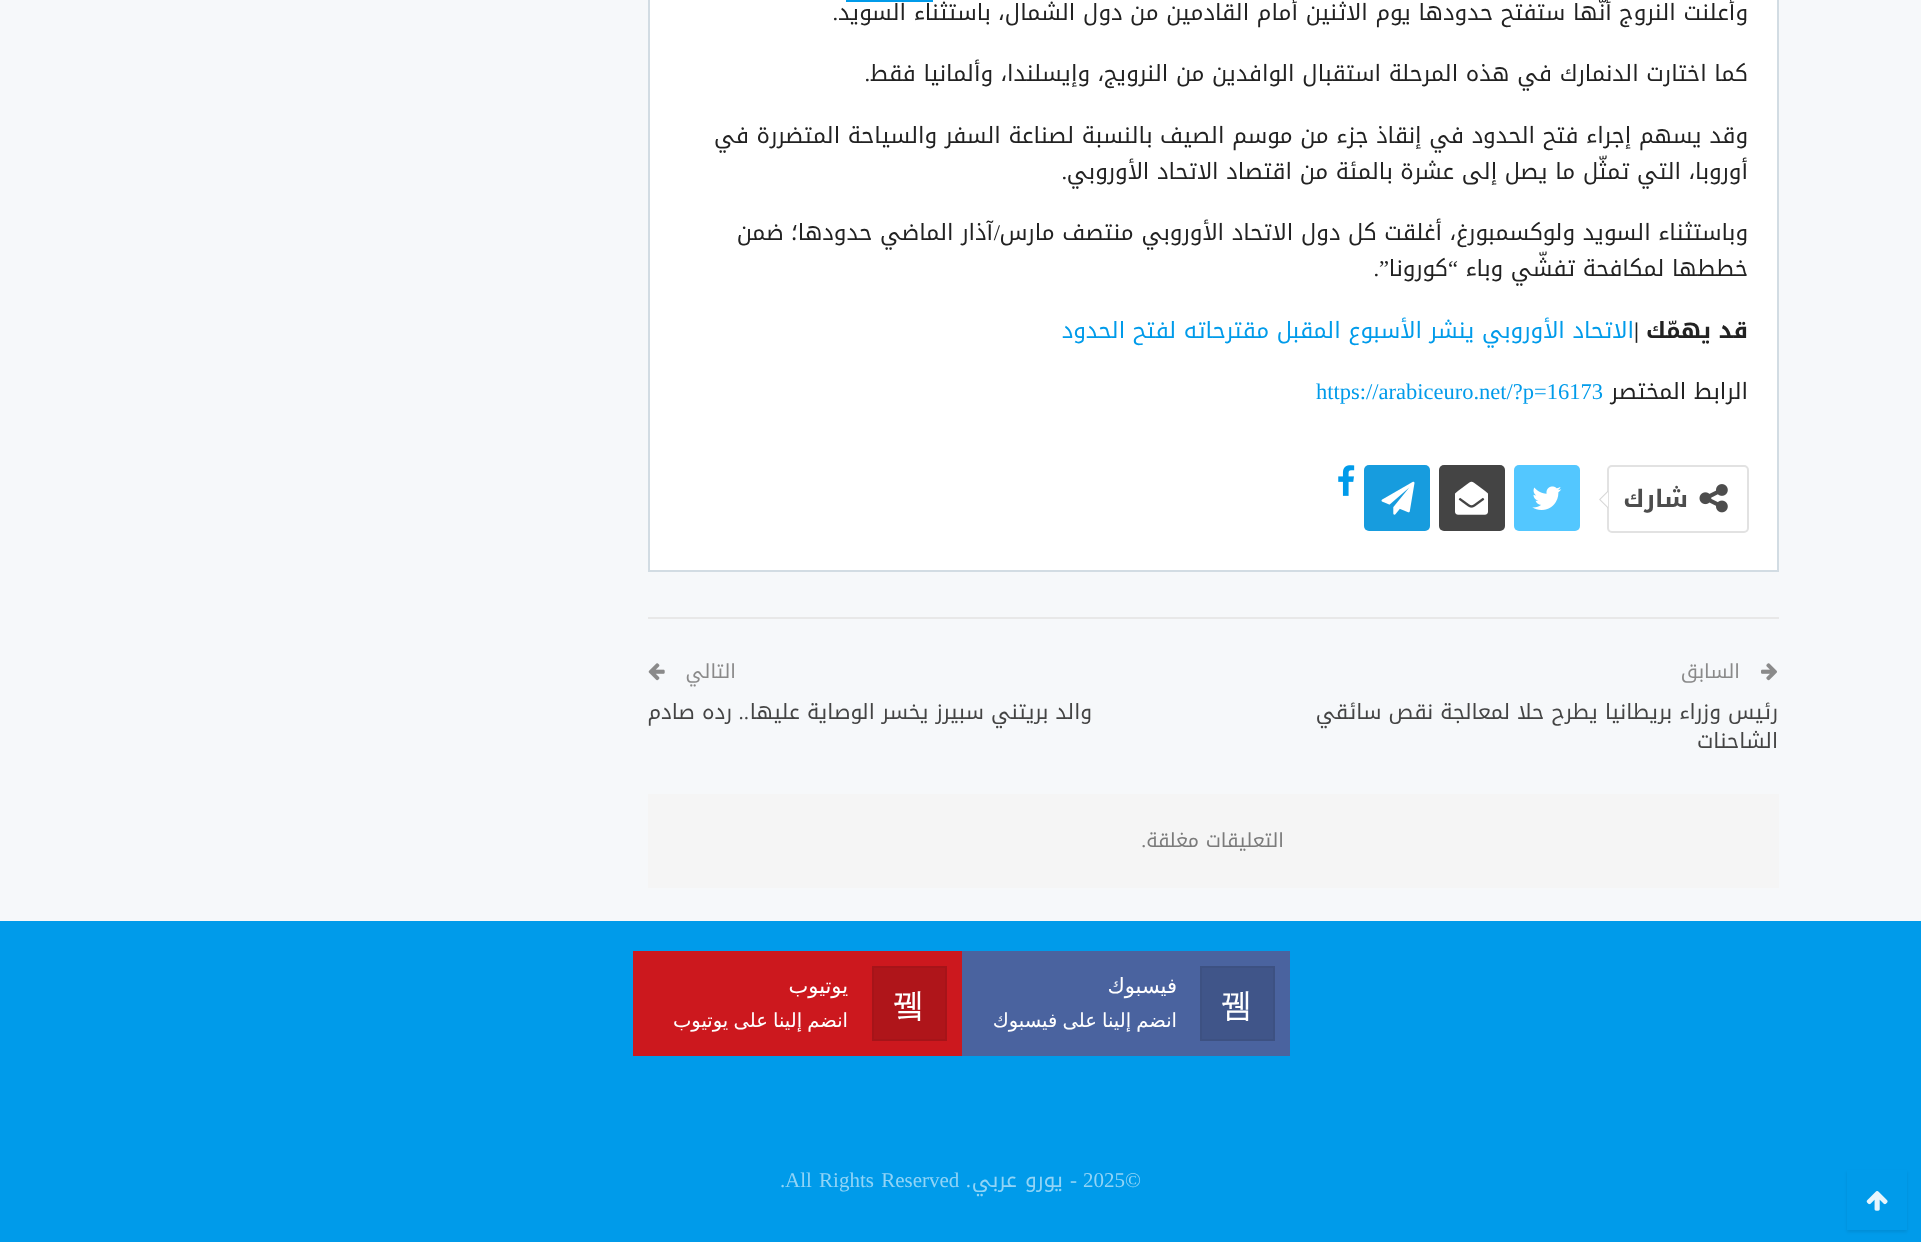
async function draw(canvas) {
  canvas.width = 1921
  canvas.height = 1242
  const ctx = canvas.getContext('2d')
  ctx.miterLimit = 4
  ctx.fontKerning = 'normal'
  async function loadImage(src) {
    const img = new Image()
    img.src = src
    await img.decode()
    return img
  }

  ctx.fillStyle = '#f6f8fa'
  ctx.fillRect(0, 0, 1921, 1242)
  ctx.fillStyle = '#009bea'
  ctx.fillRect(0, 921, 1921, 321)
  ctx.fillStyle = '#00101717'
  ctx.filter = 'blur(1.5px)'
  ctx.beginPath()
  ctx.rect(1847, 1172, 60, 60)
  ctx.fill()
  ctx.filter = 'none'
  ctx.fillStyle = '#009bea'
  ctx.fillRect(1847, 1170, 60, 60)
  ctx.drawImage(await loadImage('image0.png'), 1866, 1191, 22, 20)
  ctx.fillStyle = '#fff'
  ctx.beginPath()
  ctx.rect(649, -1, 1129, 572)
  ctx.fill()
  ctx.strokeStyle = '#d2dce3'
  ctx.lineWidth = 2
  ctx.stroke()
  ctx.direction = 'rtl'
  ctx.font = '22.5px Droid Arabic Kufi'
  ctx.fillStyle = '#222'
  ctx.fillText('وأعلنت النروج أنّها ستفتح حدودها يوم الاثنين أمام القادمين من دول الشمال، باستثناء السويد', 1748, 20)
  ctx.font = '22.5px Liberation Serif'
  ctx.fillText('.', 838, 20)
  ctx.font = '22.5px Droid Arabic Kufi'
  ctx.fillText('كما اختارت الدنمارك في هذه المرحلة استقبال الوافدين من النرويج، وإيسلندا، وألمانيا فقط', 1748, 81)
  ctx.font = '22.5px Liberation Serif'
  ctx.fillText('.', 870, 81)
  ctx.font = '22.5px Droid Arabic Kufi'
  ctx.fillText('وقد يسهم إجراء فتح الحدود في إنقاذ جزء من موسم الصيف بالنسبة لصناعة السفر والسياحة المتضررة في', 1748, 143)
  ctx.fillText('أوروبا، التي تمثّل ما يصل إلى عشرة بالمئة من اقتصاد الاتحاد الأوروبي', 1748, 179)
  ctx.font = '22.5px Liberation Serif'
  ctx.fillText('.', 1067, 179)
  ctx.font = '22.5px Droid Arabic Kufi'
  ctx.fillText('وباستثناء السويد ولوكسمبورغ، أغلقت كل دول الاتحاد الأوروبي منتصف مارس', 1748, 240)
  ctx.fillText('آذار الماضي حدودها؛ ضمن', 993, 240)
  ctx.font = '22.5px Liberation Serif'
  ctx.fillText('/', 1000, 240)
  ctx.font = '22.5px Droid Arabic Kufi'
  ctx.fillText('خططها لمكافحة تفشّي وباء', 1748, 276)
  ctx.font = '22.5px Liberation Serif'
  ctx.fillText('“', 1458, 276)
  ctx.font = '22.5px Droid Arabic Kufi'
  ctx.fillText('كورونا', 1448, 276)
  ctx.font = '22.5px Liberation Serif'
  ctx.fillText('”.', 1389, 276)
  ctx.font = 'bold 22.5px Droid Arabic Kufi'
  ctx.fillText('قد يهمّك', 1748, 338)
  ctx.font = 'bold 22.5px Liberation Serif'
  ctx.fillText('|', 1639, 338)
  ctx.font = '22.5px Droid Arabic Kufi'
  ctx.fillStyle = '#009bea'
  ctx.fillText('الاتحاد الأوروبي ينشر الأسبوع المقبل مقترحاته لفتح الحدود', 1634, 338)
  ctx.fillStyle = '#222'
  ctx.fillText('الرابط المختصر', 1748, 399)
  ctx.direction = 'ltr'
  ctx.font = '22.5px Liberation Serif'
  ctx.fillStyle = '#009bea'
  ctx.fillText('https://arabiceuro.net/?p=16173', 1316, 399)
  ctx.beginPath()
  ctx.roundRect(1608, 466, 140, 66, 4)
  ctx.strokeStyle = '#e2e2e2'
  ctx.stroke()
  ctx.drawImage(await loadImage('image1.png'), 1699, 484, 29, 29)
  ctx.direction = 'rtl'
  ctx.font = 'bold 24px Droid Arabic Kufi'
  ctx.fillStyle = '#4d4d4d'
  ctx.fillText('شارك', 1688, 507)
  ctx.fillStyle = '#d7d7d7'
  ctx.beginPath()
  ctx.moveTo(1608, 490.5)
  ctx.lineTo(1608, 508.5)
  ctx.lineTo(1599, 499.5)
  ctx.closePath()
  ctx.fill()
  ctx.fillStyle = '#fff'
  ctx.beginPath()
  ctx.moveTo(1608, 492)
  ctx.lineTo(1608, 507)
  ctx.lineTo(1600.5, 499.5)
  ctx.closePath()
  ctx.fill()
  ctx.fillStyle = '#53c7ff'
  ctx.beginPath()
  ctx.roundRect(1514, 465, 66, 66, 5)
  ctx.fill()
  ctx.drawImage(await loadImage('image2.png'), 1532, 486, 30, 24)
  ctx.fillStyle = '#444'
  ctx.beginPath()
  ctx.roundRect(1439, 465, 66, 66, 5)
  ctx.fill()
  ctx.drawImage(await loadImage('image3.png'), 1455, 481, 33, 34)
  ctx.fillStyle = '#179cde'
  ctx.beginPath()
  ctx.roundRect(1364, 465, 66, 66, 5)
  ctx.fill()
  ctx.drawImage(await loadImage('image4.png'), 1381, 481, 34, 34)
  ctx.drawImage(await loadImage('image5.png'), 1338, 465, 17, 31)
  ctx.fillStyle = '#e8e8e8'
  ctx.fillRect(648, 617, 1131, 2)
  ctx.drawImage(await loadImage('image6.png'), 1761, 663, 16, 18)
  ctx.font = '19.5px Droid Arabic Kufi'
  ctx.fillStyle = '#8a8a8a'
  ctx.fillText('السابق', 1740, 678)
  ctx.font = '21px Droid Arabic Kufi'
  ctx.fillStyle = '#444'
  ctx.fillText('رئيس وزراء بريطانيا يطرح حلا لمعالجة نقص سائقي', 1778, 719)
  ctx.fillText('الشاحنات', 1778, 748)
  ctx.font = '19.5px Droid Arabic Kufi'
  ctx.fillStyle = '#8a8a8a'
  ctx.fillText('التالي', 736, 678)
  ctx.drawImage(await loadImage('image7.png'), 648, 663, 17, 18)
  ctx.font = '21px Droid Arabic Kufi'
  ctx.fillStyle = '#444'
  ctx.fillText('والد بريتني سبيرز يخسر الوصاية عليها', 1092, 719)
  ctx.font = '21px Liberation Serif'
  ctx.fillText('..', 749, 719)
  ctx.font = '21px Droid Arabic Kufi'
  ctx.fillText('رده صادم', 732, 719)
  ctx.fillStyle = '#f5f5f5'
  ctx.fillRect(648, 794, 1131, 94)
  ctx.font = '19.5px Droid Arabic Kufi'
  ctx.fillStyle = '#7b7b7b'
  ctx.fillText('التعليقات مغلقة', 1284, 847)
  ctx.font = '19.5px Liberation Serif'
  ctx.fillText('.', 1146, 847)
  ctx.fillStyle = '#009bea'
  ctx.fillRect(846, 0, 87, 2)
  ctx.fillStyle = '#4a639f'
  ctx.fillRect(962, 951, 328, 105)
  ctx.font = '21px DejaVu Sans'
  ctx.fillStyle = '#fff'
  ctx.fillText('فيسبوك', 1177, 993)
  ctx.fillStyle = '#405589'
  ctx.beginPath()
  ctx.rect(1201, 967, 73, 73)
  ctx.fill()
  ctx.strokeStyle = '#3d5182'
  ctx.stroke()
  ctx.direction = 'ltr'
  ctx.font = '500 33px WenQuanYi Zen Hei'
  ctx.fillStyle = '#fff'
  ctx.fillText('뀀', 1220, 1016)
  ctx.wordSpacing = '-1px'
  ctx.direction = 'rtl'
  ctx.font = '19.5px DejaVu Sans'
  ctx.fillText('انضم إلينا على فيسبوك', 1177, 1027)
  ctx.fillStyle = '#cc181e'
  ctx.fillRect(633, 951, 329, 105)
  ctx.fillStyle = '#af151a'
  ctx.beginPath()
  ctx.rect(873, 967, 73, 73)
  ctx.fill()
  ctx.strokeStyle = '#a61419'
  ctx.stroke()
  ctx.wordSpacing = '0px'
  ctx.direction = 'ltr'
  ctx.font = '500 33px WenQuanYi Zen Hei'
  ctx.fillStyle = '#fff'
  ctx.fillText('뀈', 892, 1016)
  ctx.direction = 'rtl'
  ctx.font = '21px DejaVu Sans'
  ctx.fillText('يوتيوب', 848, 993)
  ctx.wordSpacing = '-1px'
  ctx.font = '19.5px DejaVu Sans'
  ctx.fillText('انضم إلينا على يوتيوب', 848, 1027)
  ctx.wordSpacing = '0px'
  ctx.direction = 'ltr'
  ctx.font = '21px Liberation Serif'
  ctx.fillStyle = '#91d4f6'
  ctx.fillText('2025©', 1083, 1187)
  ctx.direction = 'rtl'
  ctx.fillText('-', 1077, 1187)
  ctx.wordSpacing = '1px'
  ctx.font = '21px Droid Arabic Kufi'
  ctx.fillText('يورو عربي', 1063, 1187)
  ctx.wordSpacing = '2px'
  ctx.direction = 'ltr'
  ctx.font = '21px Liberation Serif'
  ctx.fillText('All Rights Reserved', 785, 1187)
  ctx.wordSpacing = '0px'
  ctx.direction = 'rtl'
  ctx.fillText('.', 971, 1187)
  ctx.direction = 'ltr'
  ctx.fillText('.', 780, 1187)
}

draw(document.querySelector('canvas'))
